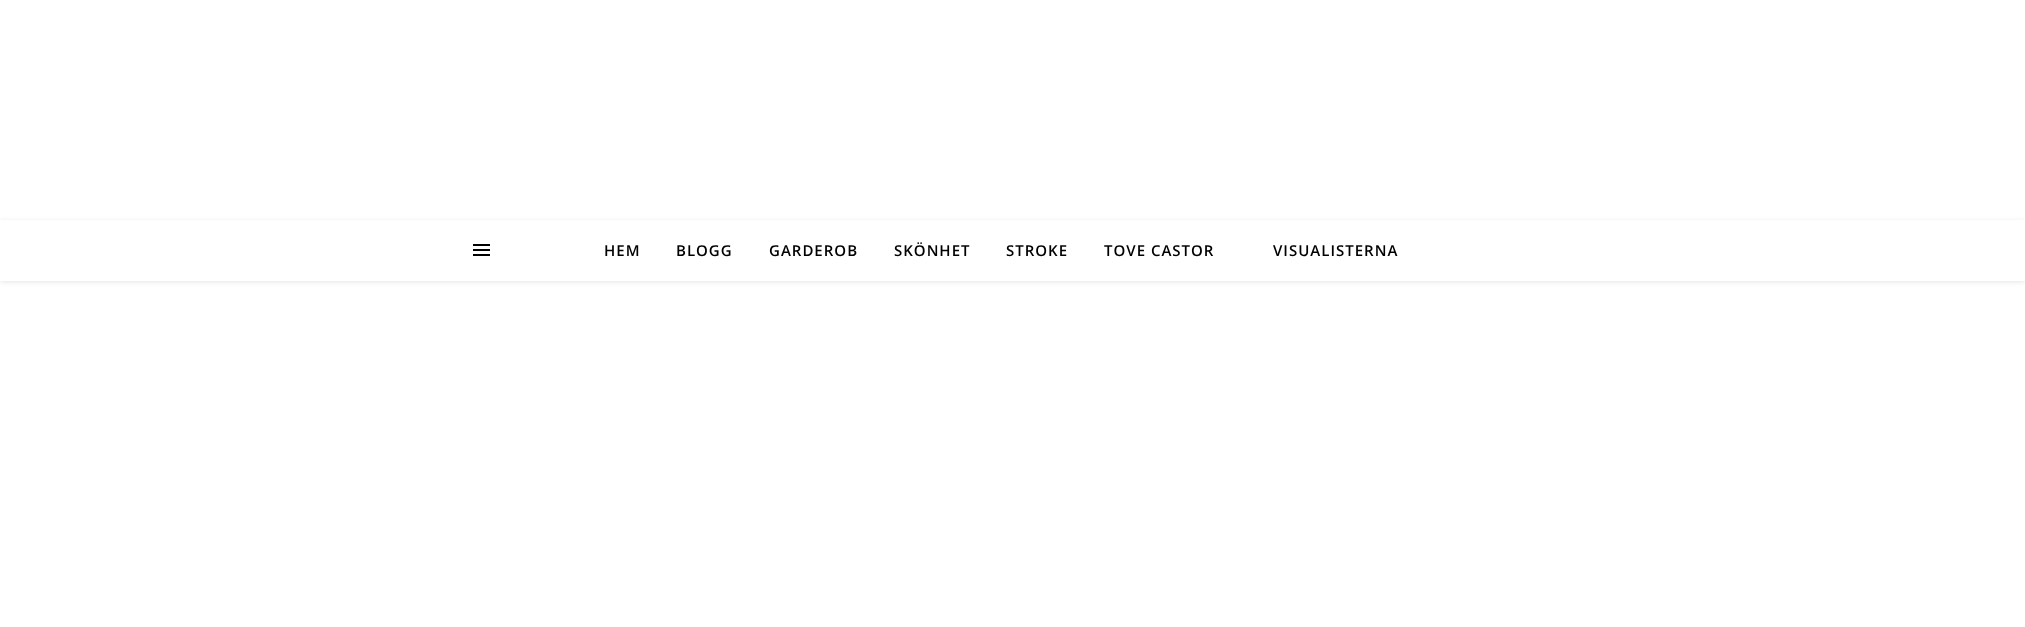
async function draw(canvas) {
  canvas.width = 2025
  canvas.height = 627
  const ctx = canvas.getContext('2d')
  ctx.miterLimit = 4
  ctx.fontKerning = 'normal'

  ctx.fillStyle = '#fff'
  ctx.fillRect(0, 0, 2025, 627)
  ctx.save()
  ctx.beginPath()
  ctx.moveTo(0, 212)
  ctx.lineTo(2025, 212)
  ctx.lineTo(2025, 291)
  ctx.lineTo(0, 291)
  ctx.closePath()
  ctx.moveTo(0, 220)
  ctx.lineTo(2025, 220)
  ctx.lineTo(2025, 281)
  ctx.lineTo(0, 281)
  ctx.closePath()
  ctx.clip('evenodd')
  ctx.fillStyle = '#0000001a'
  ctx.filter = 'blur(2.5px)'
  ctx.beginPath()
  ctx.rect(0, 221, 2025, 61)
  ctx.fill()
  ctx.filter = 'none'
  ctx.restore()
  ctx.fillStyle = '#000'
  ctx.fillRect(473, 244, 17, 2)
  ctx.fillRect(473, 249, 17, 2)
  ctx.fillRect(473, 254, 17, 2)
  ctx.letterSpacing = '1px'
  ctx.font = '600 15px Open Sans'
  ctx.fillText('HEM', 604, 256)
  ctx.fillText('BLOGG', 676, 256)
  ctx.fillText('GARDEROB', 769, 256)
  ctx.fillText('SKÖNHET', 894, 256)
  ctx.fillText('STROKE', 1006, 256)
  ctx.fillText('TOVE CASTOR', 1104, 256)
  ctx.fillText('VISUALISTERNA', 1273, 256)
}

draw(document.querySelector('canvas'))
